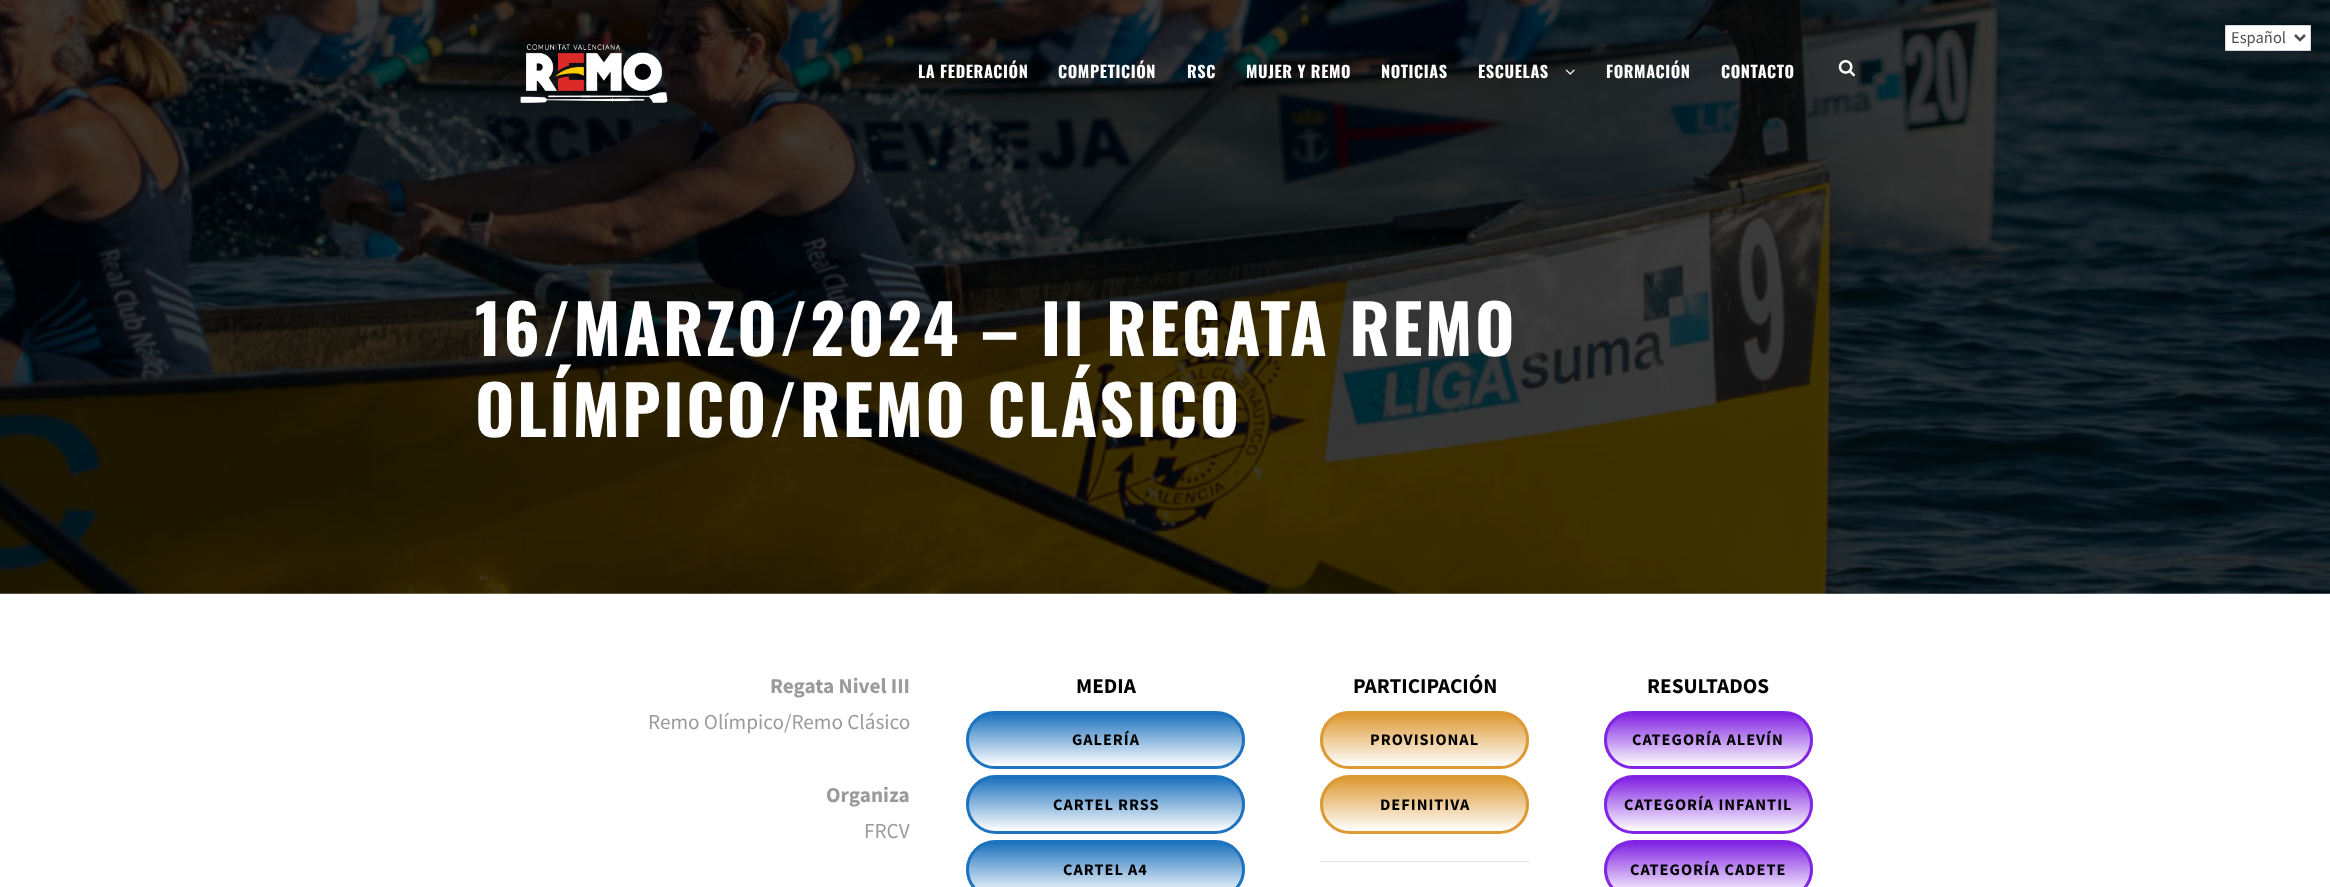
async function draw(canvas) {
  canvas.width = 2330
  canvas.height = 887
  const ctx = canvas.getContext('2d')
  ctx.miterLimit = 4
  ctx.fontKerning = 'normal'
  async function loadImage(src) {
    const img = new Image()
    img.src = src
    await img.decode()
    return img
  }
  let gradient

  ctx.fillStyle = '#fff'
  ctx.fillRect(0, 0, 2330, 887)
  ctx.drawImage(await loadImage('image3.png'), 0, 0, 2330, 594)
  ctx.beginPath()
  ctx.rect(2225.5, 25.5, 85, 25)
  ctx.fill()
  ctx.strokeStyle = '#d7d7d7'
  ctx.stroke()
  ctx.beginPath()
  ctx.moveTo(2295, 35)
  ctx.lineTo(2300, 40)
  ctx.lineTo(2305, 35)
  ctx.strokeStyle = '#4e4e4e'
  ctx.lineWidth = 2.5
  ctx.stroke()
  ctx.font = '16.5px Source Sans Pro'
  ctx.fillStyle = '#4e4e4e'
  ctx.fillText('Español', 2231, 43)
  ctx.drawImage(await loadImage('image0.png'), 520, 44, 148, 59)
  ctx.letterSpacing = '0.6px'
  ctx.font = 'bold 16.25px Oswald'
  ctx.fillStyle = '#fff'
  ctx.fillText('LA FEDERACIÓN', 918, 78)
  ctx.fillText('COMPETICIÓN', 1058, 78)
  ctx.fillText('RSC', 1187, 78)
  ctx.fillText('MUJER Y REMO', 1246, 78)
  ctx.fillText('NOTICIAS', 1381, 78)
  ctx.fillText('ESCUELAS', 1478, 78)
  ctx.drawImage(await loadImage('image1.png'), 1565, 69, 10, 6)
  ctx.fillText('FORMACIÓN', 1606, 78)
  ctx.fillText('CONTACTO', 1721, 78)
  ctx.drawImage(await loadImage('image2.png'), 1838, 60, 17, 17)
  ctx.letterSpacing = '2.5px'
  ctx.font = 'bold 67.5px Oswald'
  ctx.fillText('16/MARZO/2024 – II REGATA REMO', 475, 356)
  ctx.fillText('OLÍMPICO/REMO CLÁSICO', 475, 437)
  ctx.letterSpacing = '0px'
  ctx.font = 'bold 21.25px Source Sans Pro'
  ctx.fillStyle = '#9b9b9b'
  ctx.fillText('Regata Nivel III', 770, 693)
  ctx.font = '21.25px Source Sans Pro'
  ctx.fillText('Remo Olímpico/Remo Clásico', 648, 729)
  ctx.font = 'bold 21.25px Source Sans Pro'
  ctx.fillText('Organiza', 826, 802)
  ctx.font = '21.25px Source Sans Pro'
  ctx.fillText('FRCV', 864, 838)
  ctx.font = 'bold 21.25px Source Sans Pro'
  ctx.fillStyle = '#000'
  ctx.fillText('MEDIA', 1076, 693)
  ctx.save()
  ctx.beginPath()
  ctx.roundRect(966, 711, 279, 58, 29)
  ctx.clip()
  gradient = ctx.createLinearGradient(1106, 714, 1106, 766)
  gradient.addColorStop(0, '#1e73be')
  gradient.addColorStop(1, '#fff')
  ctx.fillStyle = gradient
  ctx.fillRect(966, 714, 279, 52)
  ctx.restore()
  ctx.beginPath()
  ctx.roundRect(967.5, 712.5, 276, 55, 27.5)
  ctx.strokeStyle = '#1e73be'
  ctx.lineWidth = 3
  ctx.stroke()
  ctx.letterSpacing = '1px'
  ctx.font = 'bold 16.25px Source Sans Pro'
  ctx.fillText('GALERÍA', 1072, 745)
  ctx.save()
  ctx.beginPath()
  ctx.roundRect(966, 775, 279, 59, 29.5)
  ctx.clip()
  gradient = ctx.createLinearGradient(1106, 778, 1106, 831)
  gradient.addColorStop(0, '#1e73be')
  gradient.addColorStop(1, '#fff')
  ctx.fillStyle = gradient
  ctx.fillRect(966, 778, 279, 53)
  ctx.restore()
  ctx.beginPath()
  ctx.roundRect(967.5, 776.5, 276, 56, 28)
  ctx.stroke()
  ctx.fillText('CARTEL RRSS', 1053, 810)
  ctx.save()
  ctx.beginPath()
  ctx.roundRect(966, 840, 279, 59, 29.5)
  ctx.clip()
  gradient = ctx.createLinearGradient(1106, 843, 1106, 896)
  gradient.addColorStop(0, '#1e73be')
  gradient.addColorStop(1, '#fff')
  ctx.fillStyle = gradient
  ctx.fillRect(966, 843, 279, 44)
  ctx.restore()
  ctx.beginPath()
  ctx.roundRect(967.5, 841.5, 276, 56, 28)
  ctx.stroke()
  ctx.fillText('CARTEL A4', 1063, 875)
  ctx.letterSpacing = '0px'
  ctx.font = 'bold 21.25px Source Sans Pro'
  ctx.fillText('PARTICIPACIÓN', 1353, 693)
  ctx.save()
  ctx.beginPath()
  ctx.roundRect(1320, 711, 209, 58, 29)
  ctx.clip()
  gradient = ctx.createLinearGradient(1424, 714, 1424, 766)
  gradient.addColorStop(0, '#d93')
  gradient.addColorStop(1, '#fff')
  ctx.fillStyle = gradient
  ctx.fillRect(1320, 714, 209, 52)
  ctx.restore()
  ctx.beginPath()
  ctx.roundRect(1321.5, 712.5, 206, 55, 27.5)
  ctx.strokeStyle = '#d93'
  ctx.stroke()
  ctx.letterSpacing = '1px'
  ctx.font = 'bold 16.25px Source Sans Pro'
  ctx.fillText('PROVISIONAL', 1370, 745)
  ctx.save()
  ctx.beginPath()
  ctx.roundRect(1320, 775, 209, 59, 29.5)
  ctx.clip()
  gradient = ctx.createLinearGradient(1424, 778, 1424, 831)
  gradient.addColorStop(0, '#d93')
  gradient.addColorStop(1, '#fff')
  ctx.fillStyle = gradient
  ctx.fillRect(1320, 778, 209, 53)
  ctx.restore()
  ctx.beginPath()
  ctx.roundRect(1321.5, 776.5, 206, 56, 28)
  ctx.stroke()
  ctx.fillText('DEFINITIVA', 1380, 810)
  ctx.fillStyle = '#e2e2e2'
  ctx.fillRect(1320, 861, 209, 1)
  ctx.letterSpacing = '0px'
  ctx.font = 'bold 21.25px Source Sans Pro'
  ctx.fillStyle = '#000'
  ctx.fillText('RESULTADOS', 1647, 693)
  ctx.save()
  ctx.beginPath()
  ctx.roundRect(1604, 711, 209, 58, 29)
  ctx.clip()
  gradient = ctx.createLinearGradient(1708, 714, 1708, 766)
  gradient.addColorStop(0, '#8224e3')
  gradient.addColorStop(1, '#fff')
  ctx.fillStyle = gradient
  ctx.fillRect(1604, 714, 209, 52)
  ctx.restore()
  ctx.beginPath()
  ctx.roundRect(1605.5, 712.5, 206, 55, 27.5)
  ctx.strokeStyle = '#8224e3'
  ctx.stroke()
  ctx.letterSpacing = '1px'
  ctx.font = 'bold 16.25px Source Sans Pro'
  ctx.fillText('CATEGORÍA ALEVÍN', 1632, 745)
  ctx.save()
  ctx.beginPath()
  ctx.roundRect(1604, 775, 209, 59, 29.5)
  ctx.clip()
  gradient = ctx.createLinearGradient(1708, 778, 1708, 831)
  gradient.addColorStop(0, '#8224e3')
  gradient.addColorStop(1, '#fff')
  ctx.fillStyle = gradient
  ctx.fillRect(1604, 778, 209, 53)
  ctx.restore()
  ctx.beginPath()
  ctx.roundRect(1605.5, 776.5, 206, 56, 28)
  ctx.stroke()
  ctx.fillText('CATEGORÍA INFANTIL', 1624, 810)
  ctx.save()
  ctx.beginPath()
  ctx.roundRect(1604, 840, 209, 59, 29.5)
  ctx.clip()
  gradient = ctx.createLinearGradient(1708, 843, 1708, 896)
  gradient.addColorStop(0, '#8224e3')
  gradient.addColorStop(1, '#fff')
  ctx.fillStyle = gradient
  ctx.fillRect(1604, 843, 209, 44)
  ctx.restore()
  ctx.beginPath()
  ctx.roundRect(1605.5, 841.5, 206, 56, 28)
  ctx.stroke()
  ctx.fillText('CATEGORÍA CADETE', 1630, 875)
}

draw(document.querySelector('canvas'))
